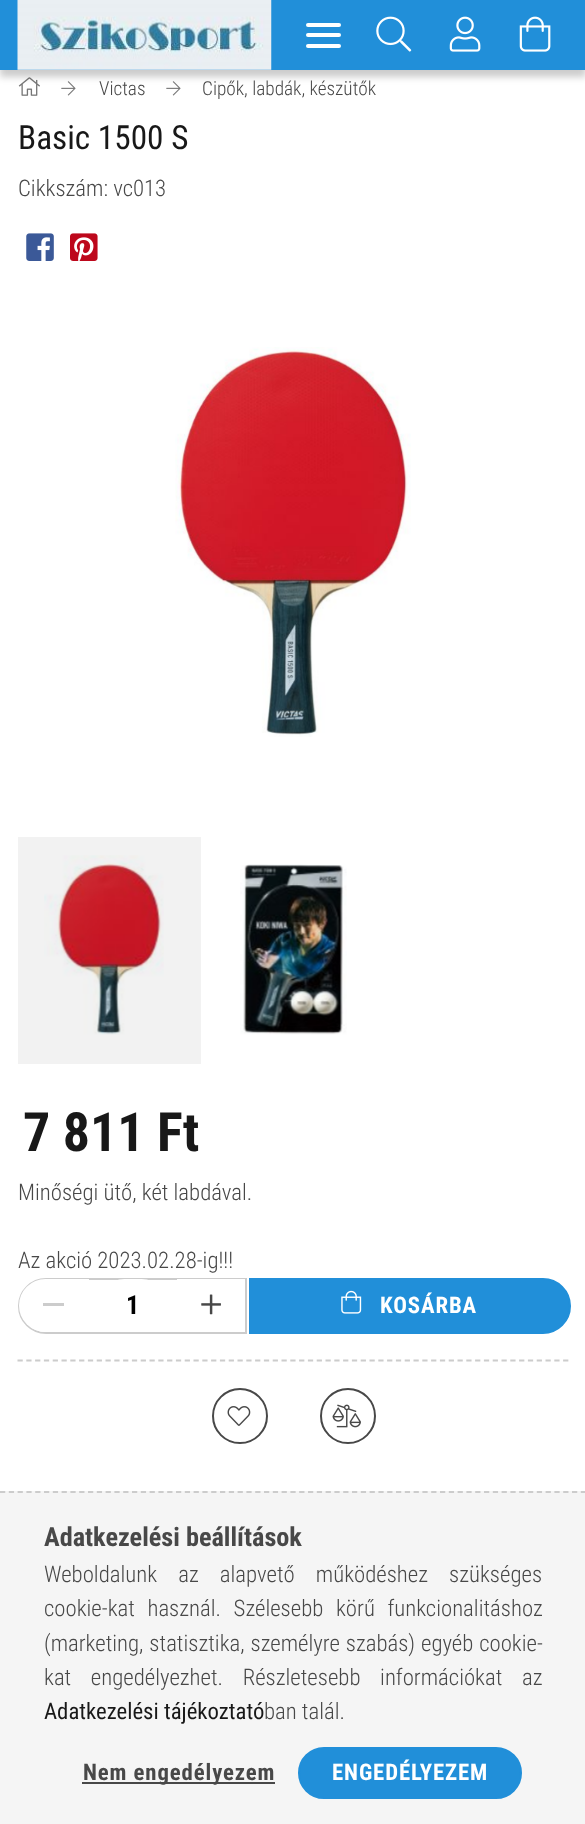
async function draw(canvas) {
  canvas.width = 585
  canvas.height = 1824
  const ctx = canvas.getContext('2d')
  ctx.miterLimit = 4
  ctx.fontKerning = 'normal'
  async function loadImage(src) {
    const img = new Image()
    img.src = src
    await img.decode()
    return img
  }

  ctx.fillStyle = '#fff'
  ctx.fillRect(0, 0, 585, 1824)
  ctx.fillStyle = '#f2f2f2'
  ctx.fillRect(18, 837, 183, 227)
  ctx.drawImage(await loadImage('image4.png'), 18, 77, 22, 19)
  ctx.drawImage(await loadImage('image5.png'), 61, 81, 15, 15)
  ctx.drawImage(await loadImage('image5.png'), 166, 81, 15, 15)
  ctx.fillStyle = '#00000033'
  ctx.filter = 'blur(3.5px)'
  ctx.beginPath()
  ctx.rect(0, 7, 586, 70)
  ctx.fill()
  ctx.filter = 'none'
  ctx.fillStyle = '#218fd9'
  ctx.fillRect(0, 0, 585, 70)
  ctx.drawImage(await loadImage('image0.png'), 17, 0, 255, 70)
  ctx.fillStyle = '#fff'
  ctx.beginPath()
  ctx.roundRect(306, 23, 35, 4, 2)
  ctx.fill()
  ctx.beginPath()
  ctx.roundRect(306, 33, 35, 4, 2)
  ctx.fill()
  ctx.beginPath()
  ctx.roundRect(306, 44, 35, 4, 2)
  ctx.fill()
  ctx.drawImage(await loadImage('image1.png'), 376, 16, 36, 36)
  ctx.drawImage(await loadImage('image2.png'), 449, 16, 32, 36)
  ctx.drawImage(await loadImage('image3.png'), 519, 16, 32, 36)
  ctx.font = '300 19.25px Roboto Condensed'
  ctx.fillStyle = '#484848'
  ctx.fillText('Victas', 99, 95)
  ctx.fillText('Cipők, labdák, készütők', 202, 95)
  ctx.font = '33.25px Roboto Condensed'
  ctx.fillStyle = '#181818'
  ctx.fillText('Basic 1500 S', 18, 149)
  ctx.font = '300 22.75px Roboto Condensed'
  ctx.fillStyle = '#484848'
  ctx.fillText('Cikkszám: vc013', 18, 196)
  ctx.drawImage(await loadImage('image6.png'), 26, 233, 28, 28)
  ctx.drawImage(await loadImage('image7.png'), 70, 233, 28, 28)
  ctx.drawImage(await loadImage('image8.png'), 175, 347, 236, 390)
  ctx.drawImage(await loadImage('image9.png'), 44, 855, 120, 180)
  ctx.drawImage(await loadImage('image10.png'), 240, 864, 107, 171)
  ctx.font = 'bold 54px Roboto Condensed'
  ctx.fillStyle = '#181818'
  ctx.fillText('7 811 Ft', 23, 1151)
  ctx.font = '300 22.75px Roboto Condensed'
  ctx.fillStyle = '#484848'
  ctx.fillText('Minőségi ütő, két labdával.', 18, 1200)
  ctx.fillText('Az akció 2023.02.28-ig!!!', 18, 1268)
  ctx.beginPath()
  ctx.roundRect(19, 1279, 227, 54, [27, 0, 0, 27])
  ctx.strokeStyle = '#ccc'
  ctx.lineWidth = 2
  ctx.stroke()
  ctx.fillStyle = '#fff'
  ctx.beginPath()
  ctx.roundRect(19, 1279, 70, 53, [26.5, 0, 0, 26.5])
  ctx.fill()
  ctx.fillStyle = '#ccc'
  ctx.fillRect(43, 1303, 21, 3)
  ctx.fillStyle = '#fff'
  ctx.beginPath()
  ctx.roundRect(98, 1279, 70, 53, 26.5)
  ctx.fill()
  ctx.font = 'bold 26.25px Roboto Condensed'
  ctx.fillStyle = '#000'
  ctx.fillText('1', 126, 1314)
  ctx.fillStyle = '#fff'
  ctx.fillRect(177, 1279, 68, 1)
  ctx.drawImage(await loadImage('image11.png'), 201, 1294, 20, 21)
  ctx.fillStyle = '#218fd9'
  ctx.beginPath()
  ctx.roundRect(250, 1279, 320, 54, [0, 27, 27, 0])
  ctx.fill()
  ctx.strokeStyle = '#218fd9'
  ctx.stroke()
  ctx.drawImage(await loadImage('image12.png'), 341, 1290, 21, 24)
  ctx.letterSpacing = '0.9px'
  ctx.font = 'bold 22.75px Roboto Condensed'
  ctx.fillStyle = '#fff'
  ctx.fillText('KOSÁRBA', 380, 1313)
  ctx.beginPath()
  ctx.moveTo(17.5, 1360.5)
  ctx.lineTo(569, 1360.5)
  ctx.strokeStyle = '#ccc'
  ctx.lineWidth = 1.8
  ctx.setLineDash([5.25, 3.55])
  ctx.stroke()
  ctx.beginPath()
  ctx.arc(240, 1416, 27, 0, 2 * Math.PI)
  ctx.strokeStyle = '#484848'
  ctx.lineWidth = 2
  ctx.setLineDash([])
  ctx.stroke()
  ctx.drawImage(await loadImage('image13.png'), 227, 1406, 24, 20)
  ctx.beginPath()
  ctx.arc(348, 1416, 27, 0, 2 * Math.PI)
  ctx.stroke()
  ctx.drawImage(await loadImage('image14.png'), 332, 1404, 29, 24)
  ctx.fillStyle = '#f5f5f5'
  ctx.fillRect(0, 1491, 585, 333)
  ctx.beginPath()
  ctx.moveTo(0, 1492)
  ctx.lineTo(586, 1492)
  ctx.strokeStyle = '#ccc'
  ctx.lineWidth = 1.8
  ctx.setLineDash([5.25, 3.55])
  ctx.stroke()
  ctx.letterSpacing = '0px'
  ctx.font = 'bold 26.25px Roboto Condensed'
  ctx.fillStyle = '#484848'
  ctx.fillText('Adatkezelési beállítások', 44, 1546)
  ctx.wordSpacing = '16px'
  ctx.font = '300 22.75px Roboto Condensed'
  ctx.fillText('Weboldalunk az alapvető működéshez szükséges', 44, 1582)
  ctx.wordSpacing = '7.5px'
  ctx.fillText('cookie-kat használ. Szélesebb körű funkcionalitáshoz', 44, 1616)
  ctx.wordSpacing = '0.75px'
  ctx.fillText('(marketing, statisztika, személyre szabás) egyéb cookie-', 44, 1651)
  ctx.wordSpacing = '14.5px'
  ctx.fillText('kat engedélyezhet. Részletesebb információkat az', 44, 1685)
  ctx.wordSpacing = '0px'
  ctx.font = '22.75px Roboto Condensed'
  ctx.fillStyle = '#181818'
  ctx.fillText('Adatkezelési tájékoztató', 44, 1719)
  ctx.font = '300 22.75px Roboto Condensed'
  ctx.fillStyle = '#484848'
  ctx.fillText('ban talál.', 264, 1719)
  ctx.fillRect(82, 1782, 193, 2)
  ctx.letterSpacing = '0.9px'
  ctx.font = 'bold 22.75px Roboto Condensed'
  ctx.fillText('Nem engedélyezem', 83, 1780)
  ctx.fillStyle = '#218fd9'
  ctx.beginPath()
  ctx.roundRect(299, 1748, 222, 50, 25)
  ctx.fill()
  ctx.strokeStyle = '#218fd9'
  ctx.lineWidth = 2
  ctx.setLineDash([])
  ctx.stroke()
  ctx.fillStyle = '#fff'
  ctx.fillText('ENGEDÉLYEZEM', 332, 1780)
}

draw(document.querySelector('canvas'))
